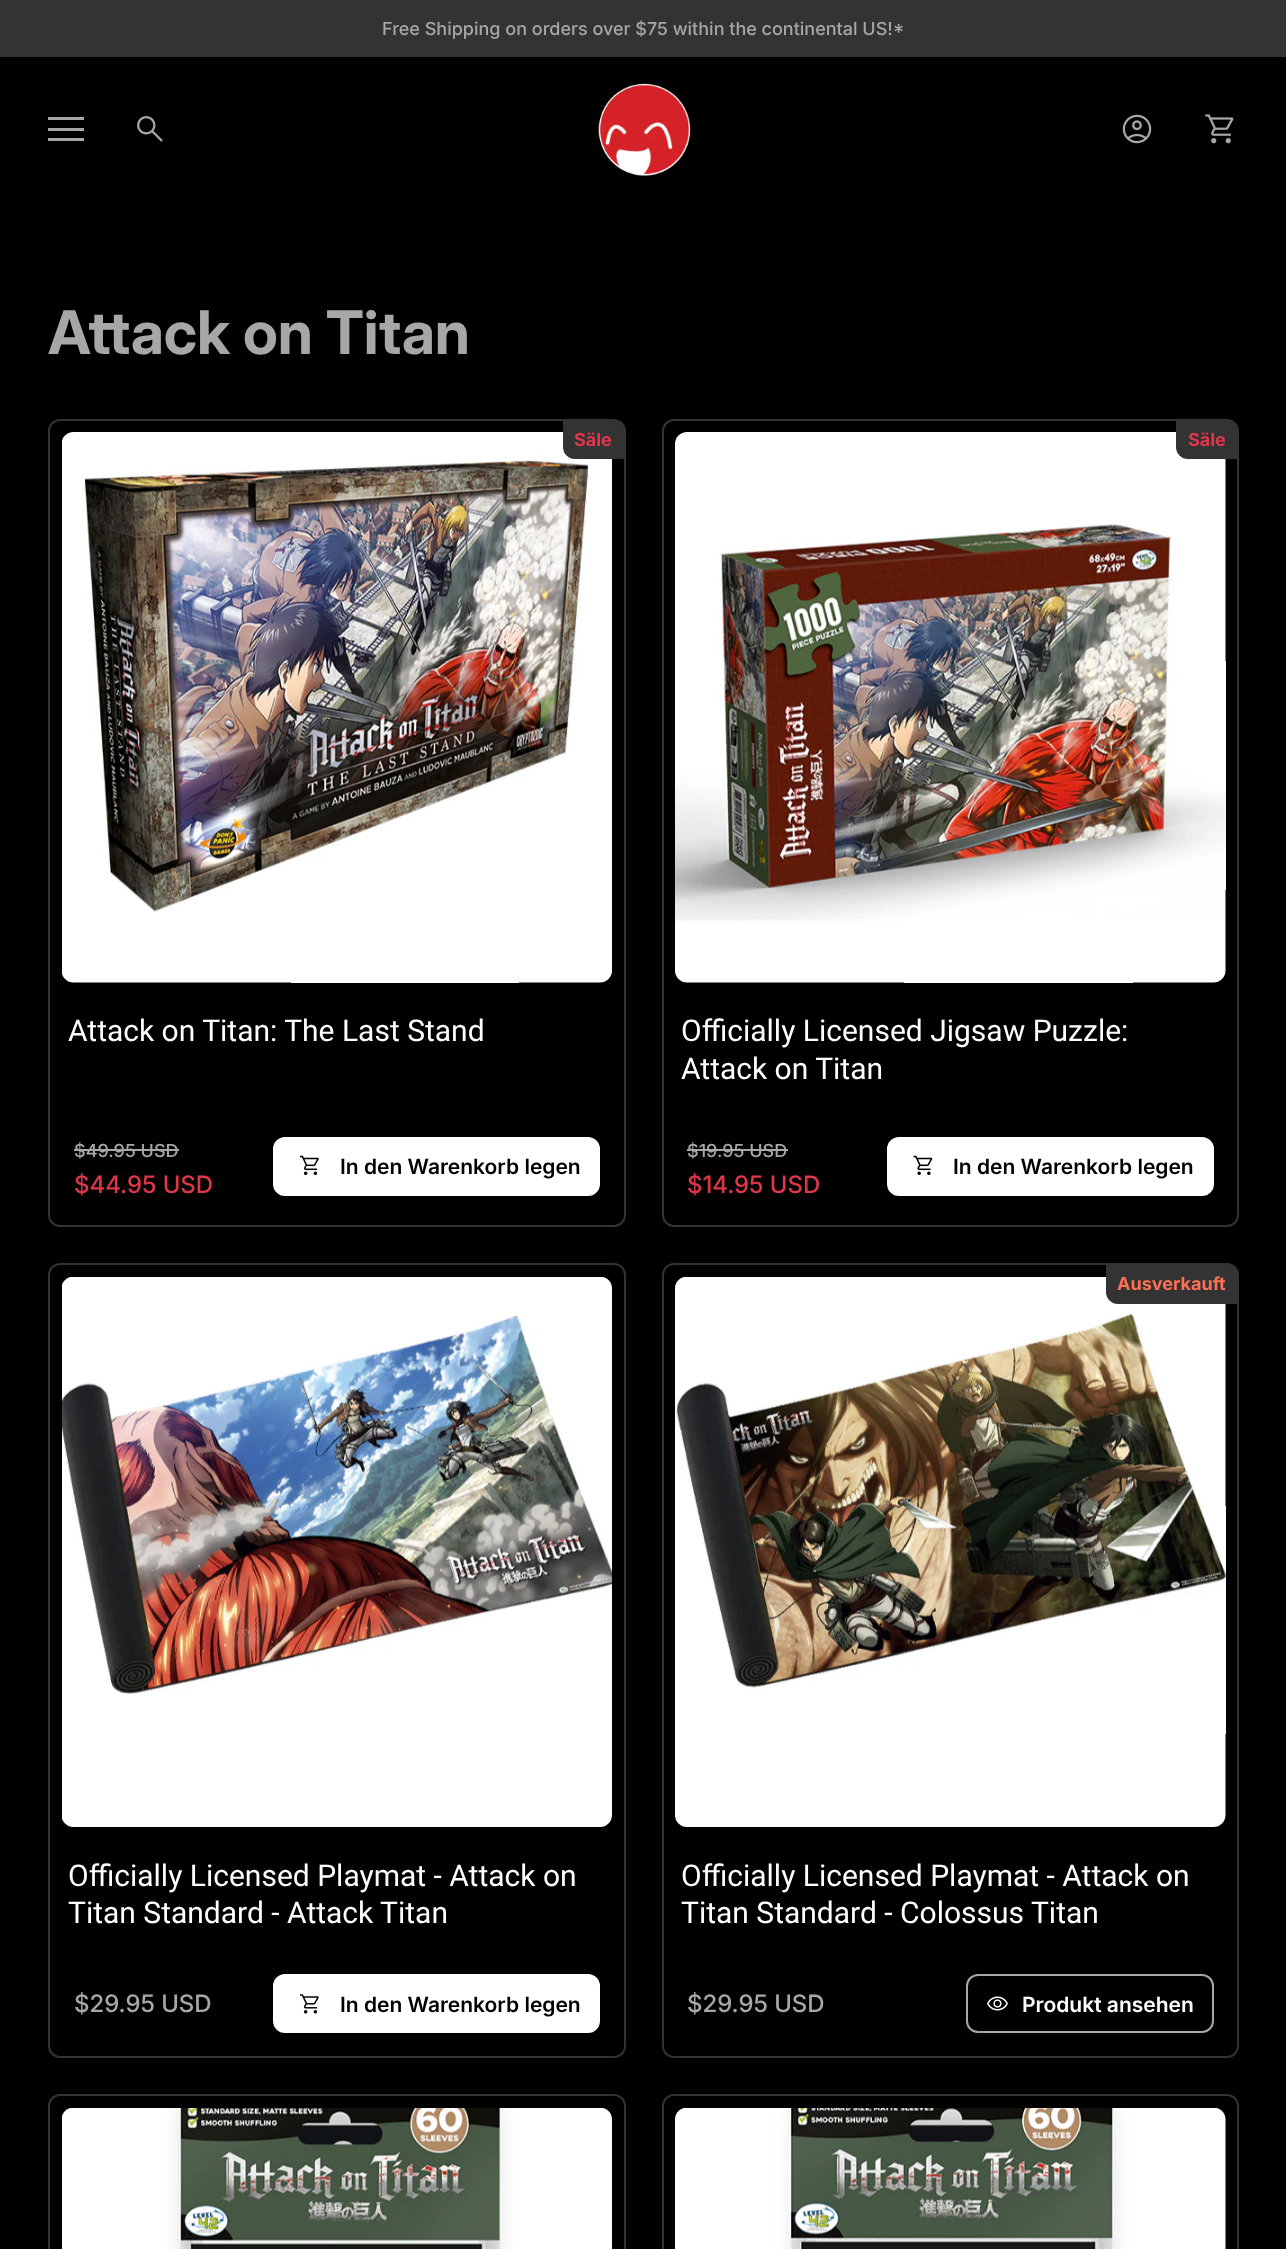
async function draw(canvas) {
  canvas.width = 1286
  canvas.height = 2249
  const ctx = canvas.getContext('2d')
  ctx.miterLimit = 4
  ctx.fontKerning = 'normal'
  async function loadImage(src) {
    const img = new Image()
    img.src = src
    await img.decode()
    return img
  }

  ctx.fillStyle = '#000'
  ctx.fillRect(0, 0, 1286, 2249)
  ctx.fillStyle = '#333'
  ctx.fillRect(0, 0, 1286, 57)
  ctx.font = '500 18px Inter'
  ctx.fillStyle = '#a7a7a7'
  ctx.fillText('Free Shipping on orders over $75 within the continental US!*', 382, 35)
  ctx.fillRect(48, 117, 36, 3)
  ctx.fillRect(48, 128, 36, 3)
  ctx.fillRect(48, 138, 36, 3)
  ctx.drawImage(await loadImage('image0.png'), 137, 116, 26, 26)
  ctx.drawImage(await loadImage('image1.png'), 598, 83, 93, 93)
  ctx.drawImage(await loadImage('image2.png'), 1122, 114, 30, 30)
  ctx.drawImage(await loadImage('image3.png'), 1205, 114, 29, 30)
  ctx.font = 'bold 60px "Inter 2"'
  ctx.fillText('Attack on Titan', 48, 354)
  ctx.beginPath()
  ctx.roundRect(49, 420, 576, 806, 11)
  ctx.strokeStyle = '#333'
  ctx.lineWidth = 2
  ctx.stroke()
  ctx.drawImage(await loadImage('image4.png'), 62, 432, 550, 551)
  ctx.fillStyle = '#333'
  ctx.beginPath()
  ctx.roundRect(563, 420, 61, 39, [0, 11, 0, 12])
  ctx.fill()
  ctx.font = 'bold 18px Inter'
  ctx.fillStyle = '#df3649'
  ctx.fillText('Säle', 574, 446)
  ctx.font = '30px Roboto'
  ctx.fillStyle = '#fff'
  ctx.fillText('Attack on Titan: The Last Stand', 68, 1041)
  ctx.font = '500 18px Inter'
  ctx.fillStyle = '#a7a7a7'
  ctx.fillText('$49.95 USD', 74, 1157)
  ctx.fillRect(74, 1149, 105, 2)
  ctx.font = '500 24px "Inter 2"'
  ctx.fillStyle = '#df3649'
  ctx.fillText('$44.95 USD', 74, 1193)
  ctx.fillStyle = '#fff'
  ctx.beginPath()
  ctx.roundRect(274, 1138, 325, 57, 11)
  ctx.fill()
  ctx.strokeStyle = '#fff'
  ctx.stroke()
  ctx.drawImage(await loadImage('image5.png'), 300, 1155, 19, 20)
  ctx.font = '600 21px Inter'
  ctx.fillStyle = '#000'
  ctx.fillText('In den Warenkorb legen', 340, 1174)
  ctx.beginPath()
  ctx.roundRect(663, 420, 575, 806, 11)
  ctx.strokeStyle = '#333'
  ctx.stroke()
  ctx.drawImage(await loadImage('image6.png'), 675, 432, 551, 551)
  ctx.fillStyle = '#333'
  ctx.beginPath()
  ctx.roundRect(1176, 420, 62, 39, [0, 11, 0, 12])
  ctx.fill()
  ctx.font = 'bold 18px Inter'
  ctx.fillStyle = '#df3649'
  ctx.fillText('Säle', 1188, 446)
  ctx.font = '30px Roboto'
  ctx.fillStyle = '#fff'
  ctx.fillText('Officially Licensed Jigsaw Puzzle:', 681, 1041)
  ctx.fillText('Attack on Titan', 681, 1079)
  ctx.font = '500 18px Inter'
  ctx.fillStyle = '#a7a7a7'
  ctx.fillText('$19.95 USD', 687, 1157)
  ctx.fillRect(687, 1149, 101, 2)
  ctx.font = '500 24px "Inter 2"'
  ctx.fillStyle = '#df3649'
  ctx.fillText('$14.95 USD', 687, 1193)
  ctx.fillStyle = '#fff'
  ctx.beginPath()
  ctx.roundRect(888, 1138, 325, 57, 11)
  ctx.fill()
  ctx.strokeStyle = '#fff'
  ctx.stroke()
  ctx.drawImage(await loadImage('image7.png'), 913, 1155, 20, 20)
  ctx.font = '600 21px Inter'
  ctx.fillStyle = '#000'
  ctx.fillText('In den Warenkorb legen', 953, 1174)
  ctx.beginPath()
  ctx.roundRect(49, 1264, 576, 793, 11)
  ctx.strokeStyle = '#333'
  ctx.stroke()
  ctx.drawImage(await loadImage('image8.png'), 62, 1277, 550, 550)
  ctx.font = '30px Roboto'
  ctx.fillStyle = '#fff'
  ctx.fillText('Officially Licensed Playmat - Attack on', 68, 1886)
  ctx.fillText('Titan Standard - Attack Titan', 68, 1923)
  ctx.font = '500 24px "Inter 2"'
  ctx.fillStyle = '#a7a7a7'
  ctx.fillText('$29.95 USD', 74, 2012)
  ctx.fillStyle = '#fff'
  ctx.beginPath()
  ctx.roundRect(274, 1975, 325, 57, 11)
  ctx.fill()
  ctx.strokeStyle = '#fff'
  ctx.stroke()
  ctx.drawImage(await loadImage('image9.png'), 300, 1994, 19, 20)
  ctx.font = '600 21px Inter'
  ctx.fillStyle = '#000'
  ctx.fillText('In den Warenkorb legen', 340, 2012)
  ctx.beginPath()
  ctx.roundRect(663, 1264, 575, 793, 11)
  ctx.strokeStyle = '#333'
  ctx.stroke()
  ctx.drawImage(await loadImage('image10.png'), 675, 1277, 551, 550)
  ctx.fillStyle = '#333'
  ctx.beginPath()
  ctx.roundRect(1106, 1265, 132, 39, [0, 11, 0, 12])
  ctx.fill()
  ctx.font = 'bold 18px Inter'
  ctx.fillStyle = '#fc7053'
  ctx.fillText('Ausverkauft', 1117, 1290)
  ctx.font = '30px Roboto'
  ctx.fillStyle = '#fff'
  ctx.fillText('Officially Licensed Playmat - Attack on', 681, 1886)
  ctx.fillText('Titan Standard - Colossus Titan', 681, 1923)
  ctx.font = '500 24px "Inter 2"'
  ctx.fillStyle = '#a7a7a7'
  ctx.fillText('$29.95 USD', 687, 2012)
  ctx.beginPath()
  ctx.roundRect(967, 1975, 246, 57, 11)
  ctx.strokeStyle = '#a7a7a7'
  ctx.stroke()
  ctx.drawImage(await loadImage('image11.png'), 987, 1996, 21, 15)
  ctx.font = '600 21px Inter'
  ctx.fillStyle = '#fff'
  ctx.fillText('Produkt ansehen', 1022, 2012)
  ctx.beginPath()
  ctx.roundRect(49, 2095, 576, 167, 11)
  ctx.strokeStyle = '#333'
  ctx.stroke()
  ctx.drawImage(await loadImage('image12.png'), 62, 2108, 550, 141)
  ctx.beginPath()
  ctx.roundRect(663, 2095, 575, 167, 11)
  ctx.stroke()
  ctx.drawImage(await loadImage('image13.png'), 675, 2108, 551, 141)
}

draw(document.querySelector('canvas'))
